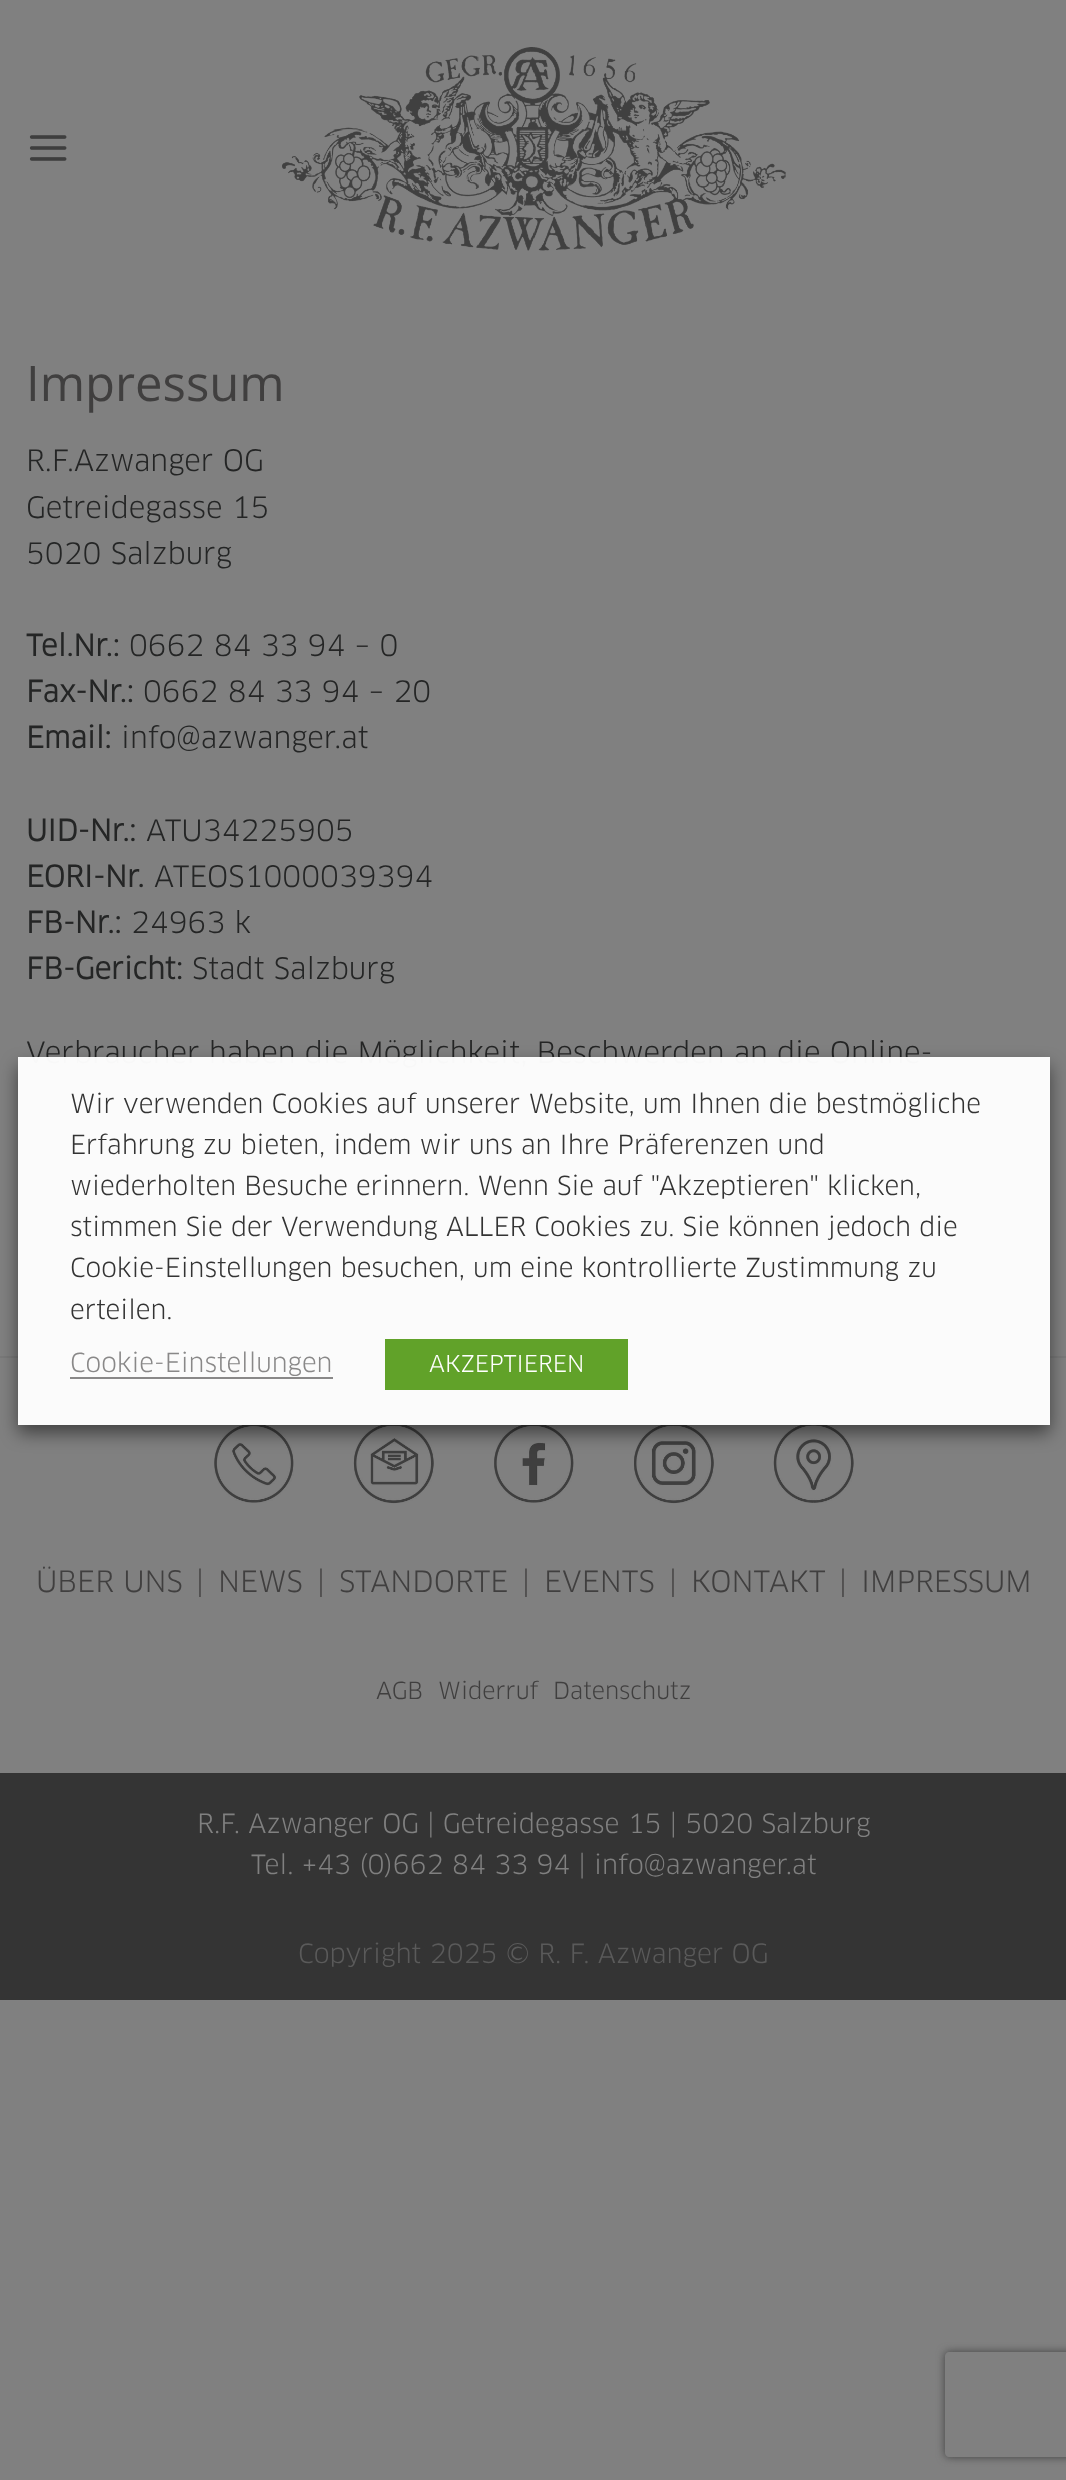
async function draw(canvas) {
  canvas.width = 1066
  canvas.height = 2480
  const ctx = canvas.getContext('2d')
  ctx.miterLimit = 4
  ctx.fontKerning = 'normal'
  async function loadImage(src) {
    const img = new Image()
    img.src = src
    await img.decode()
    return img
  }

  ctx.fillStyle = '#808080'
  ctx.fillRect(0, 0, 1066, 2480)
  ctx.drawImage(await loadImage('image0.png'), 29, 135, 38, 26)
  ctx.drawImage(await loadImage('image1.png'), 282, 47, 504, 204)
  ctx.font = '49px Open Sans'
  ctx.fillStyle = '#403f3f'
  ctx.fillText('Impressum', 26, 401)
  ctx.font = '28.85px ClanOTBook'
  ctx.fillStyle = '#242525'
  ctx.fillText('R.F.Azwanger OG', 26, 471)
  ctx.fillText('Getreidegasse 15', 26, 518)
  ctx.fillText('5020 Salzburg', 26, 564)
  ctx.font = 'bold 28.85px ClanOTBook'
  ctx.fillText('Tel.Nr.:', 26, 656)
  ctx.font = '28.85px ClanOTBook'
  ctx.fillText('0662 84 33 94 – 0', 129, 656)
  ctx.font = 'bold 28.85px ClanOTBook'
  ctx.fillText('Fax-Nr.:', 26, 702)
  ctx.font = '28.85px ClanOTBook'
  ctx.fillText('0662 84 33 94 – 20', 143, 702)
  ctx.font = 'bold 28.85px ClanOTBook'
  ctx.fillText('Email:', 26, 748)
  ctx.font = '28.85px ClanOTBook'
  ctx.fillText('info@azwanger.at', 121, 748)
  ctx.font = 'bold 28.85px ClanOTBook'
  ctx.fillText('UID-Nr.:', 26, 841)
  ctx.font = '28.85px ClanOTBook'
  ctx.fillText('ATU34225905', 146, 841)
  ctx.font = 'bold 28.85px ClanOTBook'
  ctx.fillText('EORI-Nr.', 26, 887)
  ctx.font = '28.85px ClanOTBook'
  ctx.fillText('ATEOS1000039394', 154, 887)
  ctx.font = 'bold 28.85px ClanOTBook'
  ctx.fillText('FB-Nr.:', 26, 933)
  ctx.font = '28.85px ClanOTBook'
  ctx.fillText('24963 k', 131, 933)
  ctx.font = 'bold 28.85px ClanOTBook'
  ctx.fillText('FB-Gericht:', 26, 979)
  ctx.font = '28.85px ClanOTBook'
  ctx.fillText('Stadt Salzburg', 192, 979)
  ctx.fillText('Verbraucher haben die Möglichkeit, Beschwerden an die Online-', 26, 1063)
  ctx.fillStyle = '#797979'
  ctx.fillRect(0, 1356, 1066, 2)
  ctx.drawImage(await loadImage('image2.png'), 214, 1423, 80, 80)
  ctx.drawImage(await loadImage('image3.png'), 353, 1423, 81, 81)
  ctx.drawImage(await loadImage('image4.png'), 494, 1423, 80, 80)
  ctx.drawImage(await loadImage('image5.png'), 634, 1423, 80, 81)
  ctx.drawImage(await loadImage('image6.png'), 773, 1422, 81, 81)
  ctx.fillStyle = '#403f3f'
  ctx.fillText('ÜBER UNS', 36, 1592)
  ctx.fillText('|', 196, 1592)
  ctx.fillText('NEWS', 218, 1592)
  ctx.fillText('|', 317, 1592)
  ctx.fillText('STANDORTE', 339, 1592)
  ctx.fillText('|', 522, 1592)
  ctx.fillText('EVENTS', 544, 1592)
  ctx.fillText('|', 669, 1592)
  ctx.fillText('KONTAKT', 691, 1592)
  ctx.fillText('|', 839, 1592)
  ctx.fillText('IMPRESSUM', 861, 1592)
  ctx.font = '23px ClanOTBook'
  ctx.fillText('AGB', 376, 1699)
  ctx.fillText('Widerruf', 438, 1699)
  ctx.fillText('Datenschutz', 553, 1699)
  ctx.fillStyle = '#343434'
  ctx.fillRect(0, 1773, 1066, 227)
  ctx.font = '25.95px ClanOTBook'
  ctx.fillStyle = '#808080'
  ctx.fillText('R.F. Azwanger OG | Getreidegasse 15 | 5020 Salzburg', 197, 1833)
  ctx.fillText('Tel. +43 (0)662 84 33 94 | info@azwanger.at', 251, 1874)
  ctx.fillStyle = '#5a5a5a'
  ctx.fillText('Copyright 2025 © R. F. Azwanger OG', 298, 1963)
  ctx.save()
  ctx.beginPath()
  ctx.moveTo(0, 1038)
  ctx.lineTo(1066, 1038)
  ctx.lineTo(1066, 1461)
  ctx.lineTo(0, 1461)
  ctx.closePath()
  ctx.moveTo(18, 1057)
  ctx.lineTo(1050, 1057)
  ctx.lineTo(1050, 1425)
  ctx.lineTo(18, 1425)
  ctx.closePath()
  ctx.clip('evenodd')
  ctx.fillStyle = '#00000080'
  ctx.filter = 'blur(9px)'
  ctx.beginPath()
  ctx.rect(18, 1066, 1032, 367)
  ctx.fill()
  ctx.filter = 'none'
  ctx.restore()
  ctx.fillStyle = '#fffffff7'
  ctx.fillRect(18, 1057, 1032, 368)
  ctx.font = '25.65px ClanOTBook'
  ctx.fillStyle = '#333'
  ctx.fillText('Wir verwenden Cookies auf unserer Website, um Ihnen die bestmögliche', 70, 1113)
  ctx.fillText('Erfahrung zu bieten, indem wir uns an Ihre Präferenzen und', 70, 1154)
  ctx.fillText('wiederholten Besuche erinnern. Wenn Sie auf "Akzeptieren" klicken,', 70, 1195)
  ctx.fillText('stimmen Sie der Verwendung ALLER Cookies zu. Sie können jedoch die', 70, 1236)
  ctx.fillText('Cookie-Einstellungen besuchen, um eine kontrollierte Zustimmung zu', 70, 1277)
  ctx.fillText('erteilen.', 70, 1319)
  ctx.fillStyle = '#898888'
  ctx.fillText('Cookie-Einstellungen', 70, 1372)
  ctx.fillRect(70, 1377, 263, 2)
  ctx.fillStyle = '#61a229'
  ctx.fillRect(385, 1339, 243, 51)
  ctx.font = '22.75px ClanOTBook'
  ctx.fillStyle = '#fff'
  ctx.fillText('AKZEPTIEREN', 429, 1372)
  ctx.save()
  ctx.beginPath()
  ctx.moveTo(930, 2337)
  ctx.lineTo(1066, 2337)
  ctx.lineTo(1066, 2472)
  ctx.lineTo(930, 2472)
  ctx.closePath()
  ctx.moveTo(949, 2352)
  ctx.lineTo(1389, 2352)
  ctx.bezierCurveTo(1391, 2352, 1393, 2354, 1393, 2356)
  ctx.lineTo(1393, 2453)
  ctx.bezierCurveTo(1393, 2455, 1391, 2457, 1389, 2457)
  ctx.lineTo(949, 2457)
  ctx.bezierCurveTo(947, 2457, 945, 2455, 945, 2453)
  ctx.lineTo(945, 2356)
  ctx.bezierCurveTo(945, 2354, 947, 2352, 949, 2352)
  ctx.closePath()
  ctx.clip('evenodd')
  ctx.fillStyle = '#404040'
  ctx.filter = 'blur(4.5px)'
  ctx.beginPath()
  ctx.roundRect(945, 2352, 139, 105, 4)
  ctx.fill()
  ctx.filter = 'none'
  ctx.restore()
}

draw(document.querySelector('canvas'))
